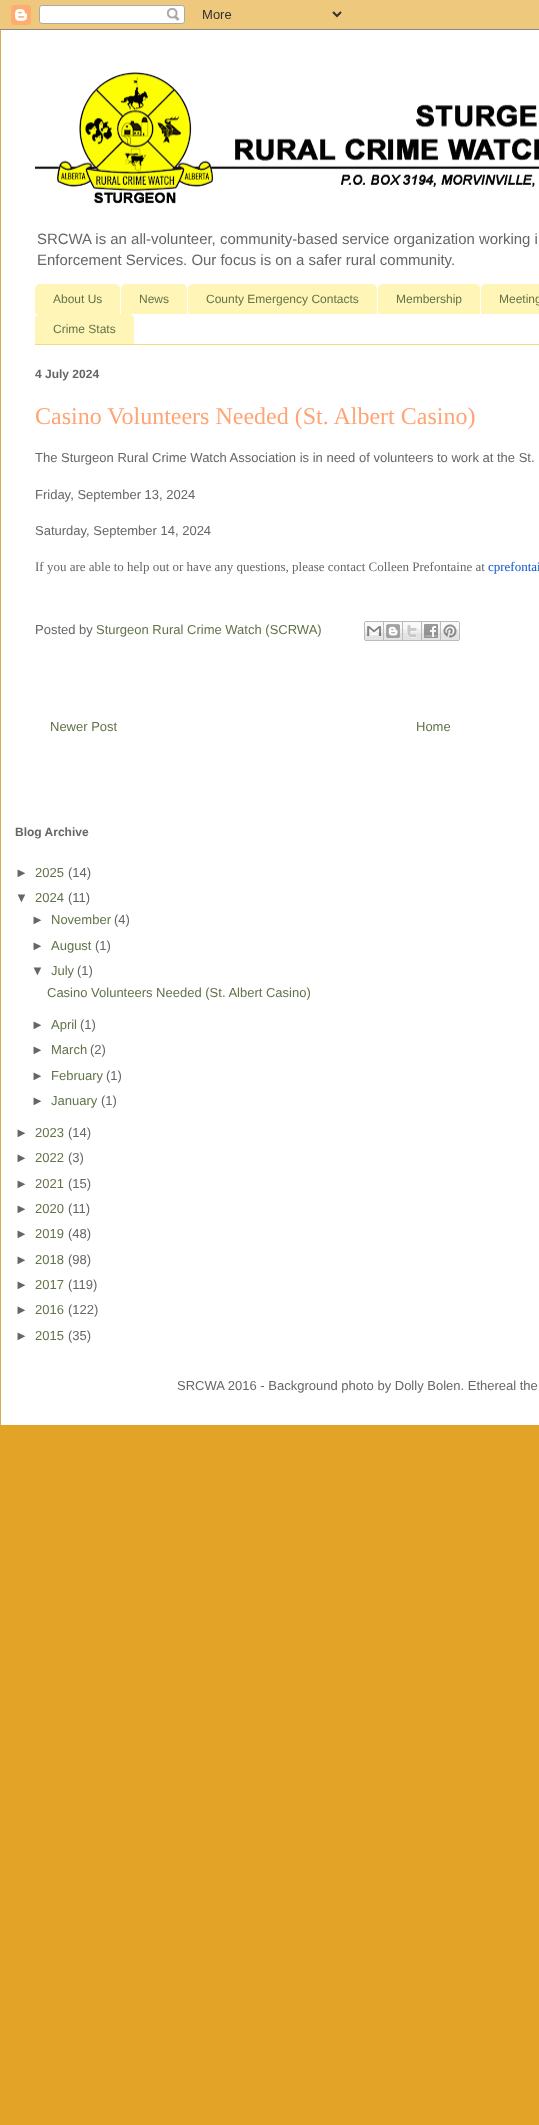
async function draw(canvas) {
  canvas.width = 539
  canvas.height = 2125
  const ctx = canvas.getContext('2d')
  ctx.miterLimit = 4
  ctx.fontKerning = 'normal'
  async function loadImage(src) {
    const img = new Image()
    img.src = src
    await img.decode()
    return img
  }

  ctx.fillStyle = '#e3a327'
  ctx.fillRect(0, 0, 539, 2125)
  ctx.drawImage(await loadImage('image0.png'), 0, 0, 539, 30)
  ctx.fillStyle = '#fff'
  ctx.fillRect(1, 30, 538, 1395)
  ctx.fillStyle = '#d8af4c'
  ctx.fillRect(0, 30, 1, 1395)
  ctx.drawImage(await loadImage('image1.png'), 35, 72, 504, 132)
  ctx.font = '14.95px Liberation Sans'
  ctx.fillStyle = '#666'
  ctx.fillText('SRCWA is an all-volunteer, community-based service organization working i', 37, 244)
  ctx.fillText('Enforcement Services. Our focus is on a safer rural community.', 37, 265)
  ctx.fillStyle = '#eddc83'
  ctx.fillRect(35, 344, 504, 1)
  ctx.fillStyle = '#fff5b7'
  ctx.beginPath()
  ctx.roundRect(35, 284, 85, 30, [5, 5, 0, 0])
  ctx.fill()
  ctx.font = '12px Liberation Sans'
  ctx.fillStyle = '#627349'
  ctx.fillText('About Us', 53, 303)
  ctx.fillStyle = '#fff5b7'
  ctx.beginPath()
  ctx.roundRect(121, 284, 66, 30, [5, 5, 0, 0])
  ctx.fill()
  ctx.fillStyle = '#627349'
  ctx.fillText('News', 139, 303)
  ctx.fillStyle = '#fff5b7'
  ctx.beginPath()
  ctx.roundRect(188, 284, 189, 30, [5, 5, 0, 0])
  ctx.fill()
  ctx.fillStyle = '#627349'
  ctx.fillText('County Emergency Contacts', 206, 303)
  ctx.fillStyle = '#fff5b7'
  ctx.beginPath()
  ctx.roundRect(378, 284, 102, 30, [5, 5, 0, 0])
  ctx.fill()
  ctx.fillStyle = '#627349'
  ctx.fillText('Membership', 396, 303)
  ctx.fillStyle = '#fff5b7'
  ctx.beginPath()
  ctx.moveTo(486, 284)
  ctx.lineTo(539, 284)
  ctx.bezierCurveTo(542, 284, 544, 286, 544, 289)
  ctx.lineTo(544, 314)
  ctx.lineTo(481, 314)
  ctx.lineTo(481, 289)
  ctx.bezierCurveTo(481, 286, 483, 284, 486, 284)
  ctx.closePath()
  ctx.fill()
  ctx.fillStyle = '#627349'
  ctx.fillText('Meeting', 499, 303)
  ctx.fillStyle = '#fff5b7'
  ctx.beginPath()
  ctx.roundRect(35, 314, 99, 30, [5, 5, 0, 0])
  ctx.fill()
  ctx.fillStyle = '#627349'
  ctx.fillText('Crime Stats', 53, 333)
  ctx.font = 'bold 12px Liberation Sans'
  ctx.fillStyle = '#666'
  ctx.fillText('4 July 2024', 35, 378)
  ctx.font = '24px Liberation Serif'
  ctx.fillStyle = '#ffa575'
  ctx.fillText('Casino Volunteers Needed (St. Albert Casino)', 35, 424)
  ctx.font = '13px Liberation Sans'
  ctx.fillStyle = '#666'
  ctx.fillText('The Sturgeon Rural Crime Watch Association is in need of volunteers to work at the St.', 35, 462)
  ctx.fillText('Friday, September 13, 2024', 35, 499)
  ctx.fillText('Saturday, September 14, 2024', 35, 535)
  ctx.font = '13px Liberation Serif'
  ctx.fillText('If you are able to help out or have any questions, please contact Colleen Prefontaine at', 35, 571)
  ctx.fillStyle = '#15c'
  ctx.fillText('cprefontai', 488, 571)
  ctx.font = '13px Liberation Sans'
  ctx.fillStyle = '#666'
  ctx.fillText('Posted by', 35, 634)
  ctx.fillStyle = '#627349'
  ctx.fillText('Sturgeon Rural Crime Watch (SCRWA)', 96, 634)
  ctx.drawImage(await loadImage('image2.png'), 364, 621, 20, 20)
  ctx.drawImage(await loadImage('image3.png'), 384, 621, 19, 20)
  ctx.drawImage(await loadImage('image4.png'), 403, 621, 19, 20)
  ctx.drawImage(await loadImage('image5.png'), 422, 621, 19, 20)
  ctx.drawImage(await loadImage('image6.png'), 441, 621, 19, 20)
  ctx.fillText('Newer Post', 50, 731)
  ctx.fillText('Home', 416, 731)
  ctx.font = 'bold 12px Liberation Sans'
  ctx.fillStyle = '#666'
  ctx.fillText('Blog Archive', 15, 836)
  ctx.font = '13px Liberation Sans'
  ctx.fillText('►', 15, 877)
  ctx.fillStyle = '#627349'
  ctx.fillText('2025', 35, 877)
  ctx.fillStyle = '#666'
  ctx.fillText('(14)', 68, 877)
  ctx.fillText('▼', 15, 902)
  ctx.fillStyle = '#627349'
  ctx.fillText('2024', 35, 902)
  ctx.fillStyle = '#666'
  ctx.fillText('(11)', 68, 902)
  ctx.fillText('►', 31, 924)
  ctx.fillStyle = '#627349'
  ctx.fillText('November', 51, 924)
  ctx.fillStyle = '#666'
  ctx.fillText('(4)', 114, 924)
  ctx.fillText('►', 31, 950)
  ctx.fillStyle = '#627349'
  ctx.fillText('August', 51, 950)
  ctx.fillStyle = '#666'
  ctx.fillText('(1)', 95, 950)
  ctx.fillText('▼', 31, 975)
  ctx.fillStyle = '#627349'
  ctx.fillText('July', 51, 975)
  ctx.fillStyle = '#666'
  ctx.fillText('(1)', 77, 975)
  ctx.fillStyle = '#627349'
  ctx.fillText('Casino Volunteers Needed (St. Albert Casino)', 47, 997)
  ctx.fillStyle = '#666'
  ctx.fillText('►', 31, 1029)
  ctx.fillStyle = '#627349'
  ctx.fillText('April', 51, 1029)
  ctx.fillStyle = '#666'
  ctx.fillText('(1)', 80, 1029)
  ctx.fillText('►', 31, 1054)
  ctx.fillStyle = '#627349'
  ctx.fillText('March', 51, 1054)
  ctx.fillStyle = '#666'
  ctx.fillText('(2)', 90, 1054)
  ctx.fillText('►', 31, 1080)
  ctx.fillStyle = '#627349'
  ctx.fillText('February', 51, 1080)
  ctx.fillStyle = '#666'
  ctx.fillText('(1)', 106, 1080)
  ctx.fillText('►', 31, 1105)
  ctx.fillStyle = '#627349'
  ctx.fillText('January', 51, 1105)
  ctx.fillStyle = '#666'
  ctx.fillText('(1)', 101, 1105)
  ctx.fillText('►', 15, 1137)
  ctx.fillStyle = '#627349'
  ctx.fillText('2023', 35, 1137)
  ctx.fillStyle = '#666'
  ctx.fillText('(14)', 68, 1137)
  ctx.fillText('►', 15, 1162)
  ctx.fillStyle = '#627349'
  ctx.fillText('2022', 35, 1162)
  ctx.fillStyle = '#666'
  ctx.fillText('(3)', 68, 1162)
  ctx.fillText('►', 15, 1188)
  ctx.fillStyle = '#627349'
  ctx.fillText('2021', 35, 1188)
  ctx.fillStyle = '#666'
  ctx.fillText('(15)', 68, 1188)
  ctx.fillText('►', 15, 1213)
  ctx.fillStyle = '#627349'
  ctx.fillText('2020', 35, 1213)
  ctx.fillStyle = '#666'
  ctx.fillText('(11)', 68, 1213)
  ctx.fillText('►', 15, 1238)
  ctx.fillStyle = '#627349'
  ctx.fillText('2019', 35, 1238)
  ctx.fillStyle = '#666'
  ctx.fillText('(48)', 68, 1238)
  ctx.fillText('►', 15, 1264)
  ctx.fillStyle = '#627349'
  ctx.fillText('2018', 35, 1264)
  ctx.fillStyle = '#666'
  ctx.fillText('(98)', 68, 1264)
  ctx.fillText('►', 15, 1289)
  ctx.fillStyle = '#627349'
  ctx.fillText('2017', 35, 1289)
  ctx.fillStyle = '#666'
  ctx.fillText('(119)', 68, 1289)
  ctx.fillText('►', 15, 1314)
  ctx.fillStyle = '#627349'
  ctx.fillText('2016', 35, 1314)
  ctx.fillStyle = '#666'
  ctx.fillText('(122)', 68, 1314)
  ctx.fillText('►', 15, 1340)
  ctx.fillStyle = '#627349'
  ctx.fillText('2015', 35, 1340)
  ctx.fillStyle = '#666'
  ctx.fillText('(35)', 68, 1340)
  ctx.fillText('SRCWA 2016 - Background photo by Dolly Bolen. Ethereal the', 177, 1390)
}

draw(document.querySelector('canvas'))
